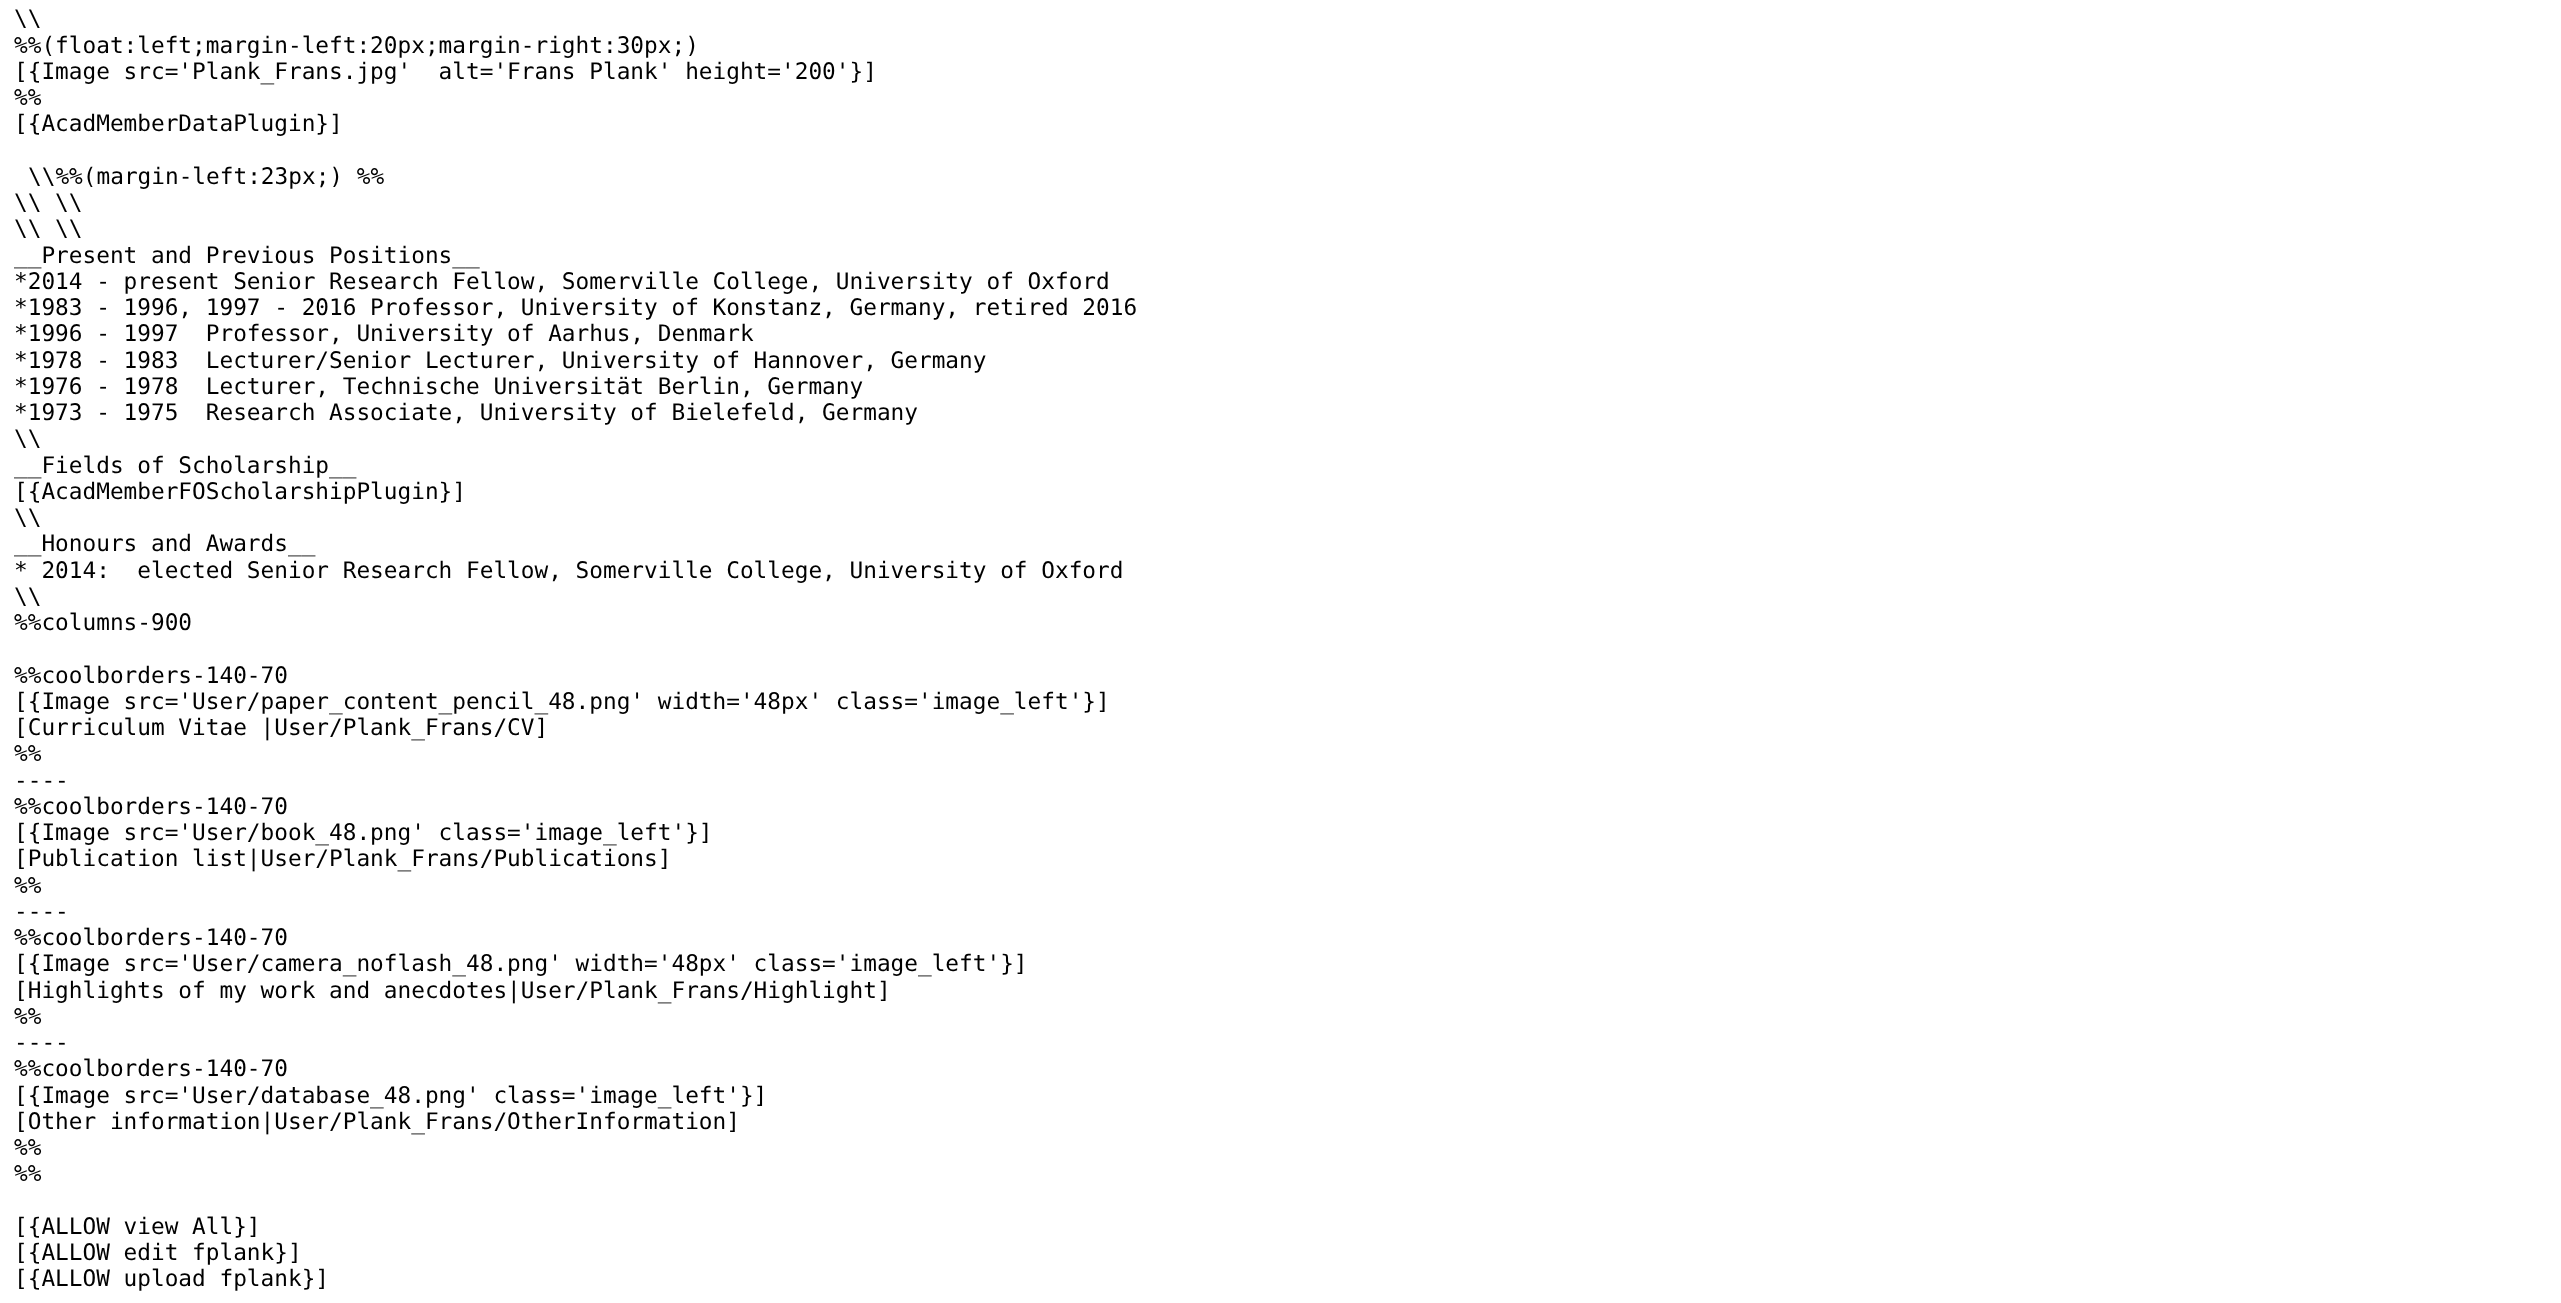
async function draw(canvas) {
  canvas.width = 2561
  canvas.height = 1303
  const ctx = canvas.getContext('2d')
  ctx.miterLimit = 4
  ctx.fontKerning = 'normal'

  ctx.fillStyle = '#fff'
  ctx.fillRect(0, 0, 2561, 1303)
  ctx.font = '22.75px DejaVu Sans Mono'
  ctx.fillStyle = '#000'
  ctx.fillText('\\\\', 14, 26)
  ctx.fillText('%%(float:left;margin-left:20px;margin-right:30px;)', 14, 53)
  ctx.fillText('[{Image src=\'Plank_Frans.jpg\'  alt=\'Frans Plank\' height=\'200\'}]', 14, 79)
  ctx.fillText('%%', 14, 105)
  ctx.fillText('[{AcadMemberDataPlugin}]', 14, 131)
  ctx.fillText('\\\\%%(margin-left:23px;) %%', 28, 184)
  ctx.fillText('\\\\ \\\\', 14, 210)
  ctx.fillText('\\\\ \\\\', 14, 236)
  ctx.fillText('__Present and Previous Positions__', 14, 263)
  ctx.fillText('*2014 - present Senior Research Fellow, Somerville College, University of Oxford', 14, 289)
  ctx.fillText('*1983 - 1996, 1997 - 2016 Professor, University of Konstanz, Germany, retired 2016', 14, 315)
  ctx.fillText('*1996 - 1997  Professor, University of Aarhus, Denmark', 14, 341)
  ctx.fillText('*1978 - 1983  Lecturer/Senior Lecturer, University of Hannover, Germany', 14, 368)
  ctx.fillText('*1976 - 1978  Lecturer, Technische Universität Berlin, Germany', 14, 394)
  ctx.fillText('*1973 - 1975  Research Associate, University of Bielefeld, Germany', 14, 420)
  ctx.fillText('\\\\', 14, 446)
  ctx.fillText('__Fields of Scholarship__', 14, 473)
  ctx.fillText('[{AcadMemberFOScholarshipPlugin}]', 14, 499)
  ctx.fillText('\\\\', 14, 525)
  ctx.fillText('__Honours and Awards__', 14, 551)
  ctx.fillText('* 2014:  elected Senior Research Fellow, Somerville College, University of Oxford', 14, 578)
  ctx.fillText('\\\\', 14, 604)
  ctx.fillText('%%columns-900', 14, 630)
  ctx.fillText('%%coolborders-140-70', 14, 683)
  ctx.fillText('[{Image src=\'User/paper_content_pencil_48.png\' width=\'48px\' class=\'image_left\'}]', 14, 709)
  ctx.fillText('[Curriculum Vitae |User/Plank_Frans/CV]', 14, 735)
  ctx.fillText('%%', 14, 761)
  ctx.fillText('----', 14, 788)
  ctx.fillText('%%coolborders-140-70', 14, 814)
  ctx.fillText('[{Image src=\'User/book_48.png\' class=\'image_left\'}]', 14, 840)
  ctx.fillText('[Publication list|User/Plank_Frans/Publications]', 14, 866)
  ctx.fillText('%%', 14, 893)
  ctx.fillText('----', 14, 919)
  ctx.fillText('%%coolborders-140-70', 14, 945)
  ctx.fillText('[{Image src=\'User/camera_noflash_48.png\' width=\'48px\' class=\'image_left\'}]', 14, 971)
  ctx.fillText('[Highlights of my work and anecdotes|User/Plank_Frans/Highlight]', 14, 998)
  ctx.fillText('%%', 14, 1024)
  ctx.fillText('----', 14, 1050)
  ctx.fillText('%%coolborders-140-70', 14, 1076)
  ctx.fillText('[{Image src=\'User/database_48.png\' class=\'image_left\'}]', 14, 1103)
  ctx.fillText('[Other information|User/Plank_Frans/OtherInformation]', 14, 1129)
  ctx.fillText('%%', 14, 1155)
  ctx.fillText('%%', 14, 1181)
  ctx.fillText('[{ALLOW view All}]', 14, 1234)
  ctx.fillText('[{ALLOW edit fplank}]', 14, 1260)
  ctx.fillText('[{ALLOW upload fplank}]', 14, 1286)
}

draw(document.querySelector('canvas'))
